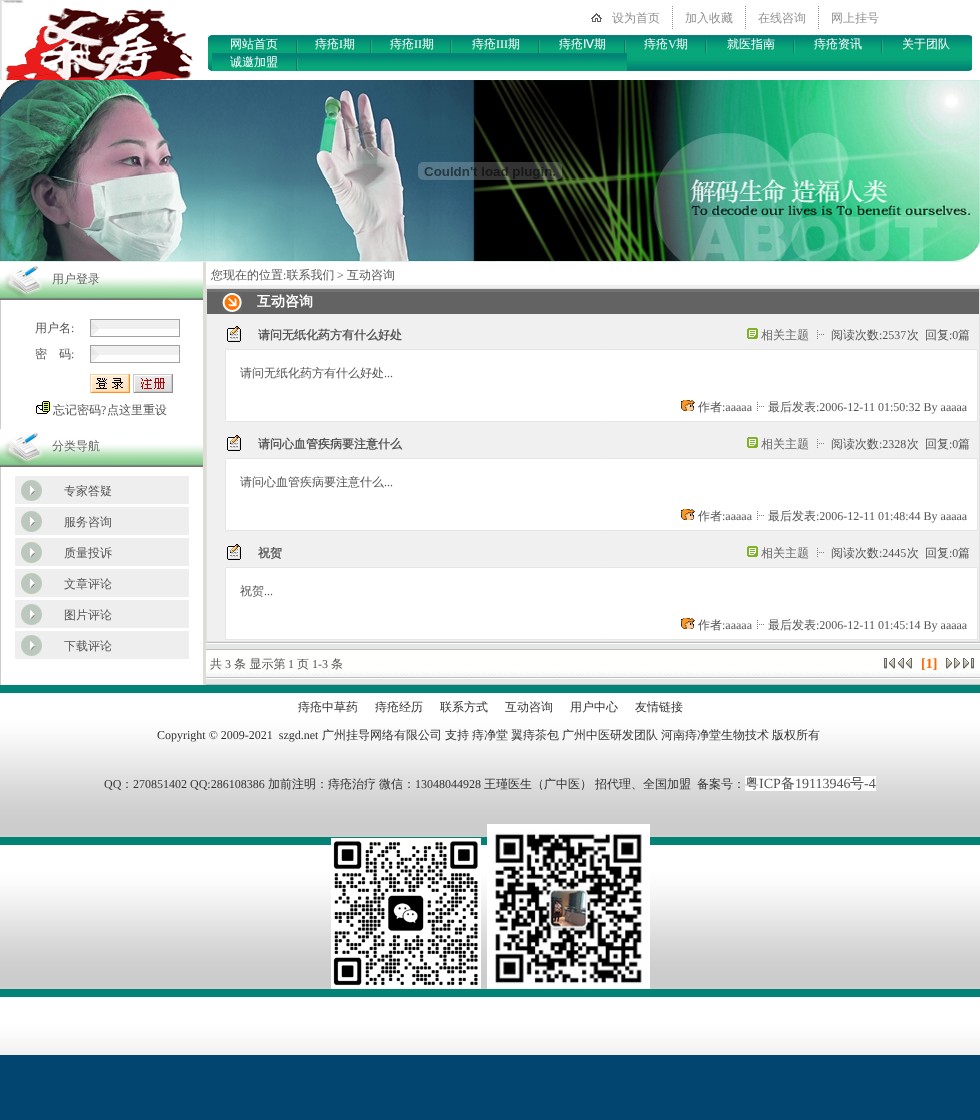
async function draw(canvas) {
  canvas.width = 980
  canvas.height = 1120
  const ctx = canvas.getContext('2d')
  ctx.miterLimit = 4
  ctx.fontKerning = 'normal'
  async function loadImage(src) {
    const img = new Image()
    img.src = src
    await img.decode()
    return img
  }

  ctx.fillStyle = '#014570'
  ctx.fillRect(0, 0, 980, 1120)
  ctx.fillStyle = '#fff'
  ctx.fillRect(193, 0, 787, 80)
  ctx.drawImage(await loadImage('image0.png'), 0, 0, 193, 80)
  ctx.drawImage(await loadImage('image1.png'), 591, 13, 11, 9)
  ctx.font = '500 12px WenQuanYi Zen Hei'
  ctx.fillStyle = '#939090'
  ctx.fillText('设为首页', 612, 22)
  ctx.drawImage(await loadImage('image2.png'), 672, 6, 1, 23)
  ctx.fillText('加入收藏', 685, 22)
  ctx.drawImage(await loadImage('image2.png'), 745, 6, 1, 23)
  ctx.fillText('在线咨询', 758, 22)
  ctx.drawImage(await loadImage('image2.png'), 818, 6, 1, 23)
  ctx.fillText('网上挂号', 831, 22)
  ctx.drawImage(await loadImage('image3.png'), 208, 35, 4, 36)
  ctx.drawImage(await loadImage('image4.png'), 212, 35, 756, 36)
  ctx.fillStyle = '#fff'
  ctx.fillText('网站首页', 230, 48)
  ctx.drawImage(await loadImage('image5.png'), 296, 39, 2, 14)
  ctx.fillText('痔疮', 315, 48)
  ctx.font = '12px Liberation Serif'
  ctx.fillText('I', 339, 48)
  ctx.font = '500 12px WenQuanYi Zen Hei'
  ctx.fillText('期', 343, 48)
  ctx.drawImage(await loadImage('image5.png'), 370, 39, 2, 14)
  ctx.fillText('痔疮', 390, 48)
  ctx.font = '12px Liberation Serif'
  ctx.fillText('II', 414, 48)
  ctx.font = '500 12px WenQuanYi Zen Hei'
  ctx.fillText('期', 422, 48)
  ctx.drawImage(await loadImage('image5.png'), 450, 39, 2, 14)
  ctx.fillText('痔疮', 472, 48)
  ctx.font = '12px Liberation Serif'
  ctx.fillText('III', 496, 48)
  ctx.font = '500 12px WenQuanYi Zen Hei'
  ctx.fillText('期', 508, 48)
  ctx.drawImage(await loadImage('image5.png'), 538, 39, 2, 14)
  ctx.fillText('痔疮', 559, 48)
  ctx.font = '12px DejaVu Sans'
  ctx.fillText('Ⅳ', 583, 48)
  ctx.font = '500 12px WenQuanYi Zen Hei'
  ctx.fillText('期', 594, 48)
  ctx.drawImage(await loadImage('image5.png'), 624, 39, 2, 14)
  ctx.fillText('痔疮', 644, 48)
  ctx.font = '12px Liberation Serif'
  ctx.fillText('V', 668, 48)
  ctx.font = '500 12px WenQuanYi Zen Hei'
  ctx.fillText('期', 676, 48)
  ctx.drawImage(await loadImage('image5.png'), 705, 39, 2, 14)
  ctx.fillText('就医指南', 727, 48)
  ctx.drawImage(await loadImage('image5.png'), 793, 39, 2, 14)
  ctx.fillText('痔疮资讯', 814, 48)
  ctx.drawImage(await loadImage('image5.png'), 881, 39, 2, 14)
  ctx.fillText('关于团队', 902, 48)
  ctx.drawImage(await loadImage('image6.png'), 212, 53, 84, 18)
  ctx.fillText('诚邀加盟', 230, 66)
  ctx.drawImage(await loadImage('image7.png'), 296, 53, 3, 18)
  ctx.drawImage(await loadImage('image8.png'), 299, 53, 71, 18)
  ctx.drawImage(await loadImage('image9.png'), 370, 53, 3, 18)
  ctx.drawImage(await loadImage('image10.png'), 373, 53, 77, 18)
  ctx.drawImage(await loadImage('image9.png'), 450, 53, 3, 18)
  ctx.drawImage(await loadImage('image11.png'), 453, 53, 85, 18)
  ctx.drawImage(await loadImage('image9.png'), 538, 53, 3, 18)
  ctx.drawImage(await loadImage('image12.png'), 541, 53, 83, 18)
  ctx.drawImage(await loadImage('image9.png'), 624, 53, 3, 18)
  ctx.drawImage(await loadImage('image13.png'), 968, 35, 4, 36)
  ctx.drawImage(await loadImage('image14.png'), 0, 80, 980, 182)
  ctx.drawImage(await loadImage('image15.png'), 418, 162, 144, 18)
  ctx.fillRect(1, 262, 979, 423)
  ctx.fillStyle = '#ccc'
  ctx.fillRect(0, 300, 1, 385)
  ctx.drawImage(await loadImage('image16.png'), 0, 262, 203, 38)
  ctx.fillStyle = '#666'
  ctx.fillText('用户登录', 52, 283)
  ctx.fillStyle = '#555'
  ctx.fillText('用户名', 35, 332)
  ctx.font = '12px Liberation Serif'
  ctx.fillText(':', 71, 332)
  ctx.drawImage(await loadImage('image17.png'), 91, 320, 88, 16)
  ctx.strokeStyle = '#a2a2a2'
  ctx.strokeRect(90.5, 319.5, 89, 17)
  ctx.font = '500 12px WenQuanYi Zen Hei'
  ctx.fillText('密　码', 35, 358)
  ctx.font = '12px Liberation Serif'
  ctx.fillText(':', 71, 358)
  ctx.drawImage(await loadImage('image17.png'), 91, 346, 88, 16)
  ctx.strokeRect(90.5, 345.5, 89, 17)
  ctx.drawImage(await loadImage('image18.png'), 90, 374, 40, 19)
  ctx.drawImage(await loadImage('image19.png'), 133, 374, 40, 19)
  ctx.drawImage(await loadImage('image20.png'), 36, 401, 14, 13)
  ctx.font = '500 12px WenQuanYi Zen Hei'
  ctx.fillText('忘记密码', 53, 414)
  ctx.font = '12px Liberation Serif'
  ctx.fillText('?', 101, 414)
  ctx.font = '500 12px WenQuanYi Zen Hei'
  ctx.fillText('点这里重设', 107, 414)
  ctx.drawImage(await loadImage('image16.png'), 0, 429, 203, 38)
  ctx.fillStyle = '#666'
  ctx.fillText('分类导航', 52, 450)
  ctx.drawImage(await loadImage('image21.png'), 15, 476, 174, 28)
  ctx.fillStyle = '#555'
  ctx.fillText('专家答疑', 64, 495)
  ctx.drawImage(await loadImage('image21.png'), 15, 507, 174, 28)
  ctx.fillText('服务咨询', 64, 526)
  ctx.drawImage(await loadImage('image21.png'), 15, 538, 174, 28)
  ctx.fillText('质量投诉', 64, 557)
  ctx.drawImage(await loadImage('image21.png'), 15, 569, 174, 28)
  ctx.fillText('文章评论', 64, 588)
  ctx.drawImage(await loadImage('image21.png'), 15, 600, 174, 28)
  ctx.fillText('图片评论', 64, 619)
  ctx.drawImage(await loadImage('image21.png'), 15, 631, 174, 28)
  ctx.fillText('下载评论', 64, 650)
  ctx.fillStyle = '#dddcd5'
  ctx.fillRect(203, 262, 3, 423)
  ctx.fillStyle = '#eee'
  ctx.fillRect(206, 285, 774, 3)
  ctx.fillStyle = '#555'
  ctx.fillText('您现在的位置 联系我们', 211, 279)
  ctx.font = '12px Liberation Serif'
  ctx.fillText('>', 337, 279)
  ctx.font = '500 12px WenQuanYi Zen Hei'
  ctx.fillText('互动咨询', 347, 279)
  ctx.font = '12px Liberation Serif'
  ctx.fillText(':', 283, 279)
  ctx.strokeStyle = '#e1e1e1'
  ctx.strokeRect(206.5, 288.5, 773, 353)
  ctx.drawImage(await loadImage('image22.png'), 207, 289, 772, 25)
  ctx.drawImage(await loadImage('image23.png'), 222, 293, 20, 19)
  ctx.font = 'bold 14px WenQuanYi Zen Hei'
  ctx.fillStyle = '#fff'
  ctx.fillText('互动咨询', 257, 306)
  ctx.fillStyle = '#f0f0f0'
  ctx.fillRect(207, 314, 772, 327)
  ctx.drawImage(await loadImage('image24.png'), 227, 326, 14, 16)
  ctx.font = 'bold 12px WenQuanYi Zen Hei'
  ctx.fillStyle = '#555'
  ctx.fillText('请问无纸化药方有什么好处', 258, 339)
  ctx.drawImage(await loadImage('image25.png'), 747, 328, 11, 11)
  ctx.font = '500 12px WenQuanYi Zen Hei'
  ctx.fillStyle = '#666'
  ctx.fillText('相关主题', 761, 339)
  ctx.drawImage(await loadImage('image26.png'), 817, 330, 7, 9)
  ctx.fillStyle = '#555'
  ctx.fillText('阅读次数', 831, 339)
  ctx.font = '12px Liberation Serif'
  ctx.fillText(':2537', 879, 339)
  ctx.font = '500 12px WenQuanYi Zen Hei'
  ctx.fillText('次', 907, 339)
  ctx.fillText('回复', 925, 339)
  ctx.font = '12px Liberation Serif'
  ctx.fillText(':0', 949, 339)
  ctx.font = '500 12px WenQuanYi Zen Hei'
  ctx.fillText('篇', 958, 339)
  ctx.fillStyle = '#fff'
  ctx.beginPath()
  ctx.rect(225.5, 349.5, 752, 72)
  ctx.fill()
  ctx.strokeStyle = '#e5e5e5'
  ctx.stroke()
  ctx.fillStyle = '#555'
  ctx.fillText('请问无纸化药方有什么好处', 240, 377)
  ctx.font = '12px Liberation Serif'
  ctx.fillText('...', 384, 377)
  ctx.drawImage(await loadImage('image27.png'), 681, 400, 14, 11)
  ctx.font = '500 12px WenQuanYi Zen Hei'
  ctx.fillText('作者', 698, 411)
  ctx.font = '12px Liberation Serif'
  ctx.fillText(':aaaaa', 722, 411)
  ctx.drawImage(await loadImage('image28.png'), 757, 402, 7, 9)
  ctx.font = '500 12px WenQuanYi Zen Hei'
  ctx.fillText('最后发表', 768, 411)
  ctx.font = '12px Liberation Serif'
  ctx.fillText(':2006-12-11 01:50:32 By aaaaa', 816, 411)
  ctx.drawImage(await loadImage('image24.png'), 227, 435, 14, 16)
  ctx.font = 'bold 12px WenQuanYi Zen Hei'
  ctx.fillText('请问心血管疾病要注意什么', 258, 448)
  ctx.drawImage(await loadImage('image25.png'), 747, 437, 11, 11)
  ctx.font = '500 12px WenQuanYi Zen Hei'
  ctx.fillStyle = '#666'
  ctx.fillText('相关主题', 761, 448)
  ctx.drawImage(await loadImage('image26.png'), 817, 439, 7, 9)
  ctx.fillStyle = '#555'
  ctx.fillText('阅读次数', 831, 448)
  ctx.font = '12px Liberation Serif'
  ctx.fillText(':2328', 879, 448)
  ctx.font = '500 12px WenQuanYi Zen Hei'
  ctx.fillText('次', 907, 448)
  ctx.fillText('回复', 925, 448)
  ctx.font = '12px Liberation Serif'
  ctx.fillText(':0', 949, 448)
  ctx.font = '500 12px WenQuanYi Zen Hei'
  ctx.fillText('篇', 958, 448)
  ctx.fillStyle = '#fff'
  ctx.beginPath()
  ctx.rect(225.5, 458.5, 752, 72)
  ctx.fill()
  ctx.stroke()
  ctx.fillStyle = '#555'
  ctx.fillText('请问心血管疾病要注意什么', 240, 486)
  ctx.font = '12px Liberation Serif'
  ctx.fillText('...', 384, 486)
  ctx.drawImage(await loadImage('image27.png'), 681, 509, 14, 11)
  ctx.font = '500 12px WenQuanYi Zen Hei'
  ctx.fillText('作者', 698, 520)
  ctx.font = '12px Liberation Serif'
  ctx.fillText(':aaaaa', 722, 520)
  ctx.drawImage(await loadImage('image28.png'), 757, 511, 7, 9)
  ctx.font = '500 12px WenQuanYi Zen Hei'
  ctx.fillText('最后发表', 768, 520)
  ctx.font = '12px Liberation Serif'
  ctx.fillText(':2006-12-11 01:48:44 By aaaaa', 816, 520)
  ctx.drawImage(await loadImage('image24.png'), 227, 544, 14, 16)
  ctx.font = 'bold 12px WenQuanYi Zen Hei'
  ctx.fillText('祝贺', 258, 557)
  ctx.drawImage(await loadImage('image25.png'), 747, 546, 11, 11)
  ctx.font = '500 12px WenQuanYi Zen Hei'
  ctx.fillStyle = '#666'
  ctx.fillText('相关主题', 761, 557)
  ctx.drawImage(await loadImage('image26.png'), 817, 548, 7, 9)
  ctx.fillStyle = '#555'
  ctx.fillText('阅读次数', 831, 557)
  ctx.font = '12px Liberation Serif'
  ctx.fillText(':2445', 879, 557)
  ctx.font = '500 12px WenQuanYi Zen Hei'
  ctx.fillText('次', 907, 557)
  ctx.fillText('回复', 925, 557)
  ctx.font = '12px Liberation Serif'
  ctx.fillText(':0', 949, 557)
  ctx.font = '500 12px WenQuanYi Zen Hei'
  ctx.fillText('篇', 958, 557)
  ctx.fillStyle = '#fff'
  ctx.beginPath()
  ctx.rect(225.5, 567.5, 752, 72)
  ctx.fill()
  ctx.stroke()
  ctx.fillStyle = '#555'
  ctx.fillText('祝贺', 240, 595)
  ctx.font = '12px Liberation Serif'
  ctx.fillText('...', 264, 595)
  ctx.drawImage(await loadImage('image27.png'), 681, 618, 14, 11)
  ctx.font = '500 12px WenQuanYi Zen Hei'
  ctx.fillText('作者', 698, 629)
  ctx.font = '12px Liberation Serif'
  ctx.fillText(':aaaaa', 722, 629)
  ctx.drawImage(await loadImage('image28.png'), 757, 620, 7, 9)
  ctx.font = '500 12px WenQuanYi Zen Hei'
  ctx.fillText('最后发表', 768, 629)
  ctx.font = '12px Liberation Serif'
  ctx.fillText(':2006-12-11 01:45:14 By aaaaa', 816, 629)
  ctx.drawImage(await loadImage('image29.png'), 206, 642, 774, 43)
  ctx.font = '500 12px WenQuanYi Zen Hei'
  ctx.fillText('共', 210, 668)
  ctx.font = '12px Liberation Serif'
  ctx.fillText('3', 225, 668)
  ctx.font = '500 12px WenQuanYi Zen Hei'
  ctx.fillText('条 显示第', 234, 668)
  ctx.font = '12px Liberation Serif'
  ctx.fillText('1', 288, 668)
  ctx.font = '500 12px WenQuanYi Zen Hei'
  ctx.fillText('页', 297, 668)
  ctx.font = '12px Liberation Serif'
  ctx.fillText('1-3', 312, 668)
  ctx.font = '500 12px WenQuanYi Zen Hei'
  ctx.fillText('条', 331, 668)
  ctx.drawImage(await loadImage('image30.png'), 884, 658, 11, 11)
  ctx.drawImage(await loadImage('image31.png'), 898, 658, 14, 11)
  ctx.font = 'bold 14px Liberation Serif'
  ctx.fillStyle = '#f60'
  ctx.fillText('[1]', 921, 668)
  ctx.drawImage(await loadImage('image32.png'), 946, 658, 14, 11)
  ctx.drawImage(await loadImage('image33.png'), 963, 658, 11, 11)
  ctx.drawImage(await loadImage('image34.png'), 0, 685, 980, 370)
  ctx.font = '500 12px WenQuanYi Zen Hei'
  ctx.fillStyle = '#333'
  ctx.fillText('痔疮中草药', 298, 711)
  ctx.fillText('痔疮经历', 375, 711)
  ctx.fillText('联系方式', 440, 711)
  ctx.fillText('互动咨询', 505, 711)
  ctx.fillText('用户中心', 570, 711)
  ctx.fillText('友情链接', 635, 711)
  ctx.font = '12px Liberation Serif'
  ctx.fillText('Copyright © 2009-2021  szgd.net', 157, 739)
  ctx.font = '500 12px WenQuanYi Zen Hei'
  ctx.fillText('广州挂导网络有限公司', 322, 739)
  ctx.fillText('支持', 445, 739)
  ctx.fillText('痔净堂', 472, 739)
  ctx.fillText('翼痔茶包', 511, 739)
  ctx.fillText('广州中医研发团队', 562, 739)
  ctx.fillText('河南痔净堂生物技术', 661, 739)
  ctx.fillText('版权所有', 772, 739)
  ctx.font = '12px Liberation Serif'
  ctx.fillText('QQ', 104, 788)
  ctx.font = '500 12px WenQuanYi Zen Hei'
  ctx.fillText('：', 121, 788)
  ctx.font = '12px Liberation Serif'
  ctx.fillText('270851402 QQ:286108386', 133, 788)
  ctx.font = '500 12px WenQuanYi Zen Hei'
  ctx.fillText('加前注明：痔疮治疗', 268, 788)
  ctx.fillText('微信：', 379, 788)
  ctx.font = '12px Liberation Serif'
  ctx.fillText('13048044928', 415, 788)
  ctx.font = '500 12px WenQuanYi Zen Hei'
  ctx.fillText('王瑾医生（广中医）', 484, 788)
  ctx.fillText('招代理、全国加盟', 595, 788)
  ctx.fillText('备案号：', 697, 788)
  ctx.fillStyle = '#fff'
  ctx.fillRect(745, 776, 131, 15)
  ctx.font = '500 14px WenQuanYi Zen Hei'
  ctx.fillStyle = '#555'
  ctx.fillText('粤', 745, 788)
  ctx.font = '14px Liberation Serif'
  ctx.fillText('ICP', 759, 788)
  ctx.font = '500 14px WenQuanYi Zen Hei'
  ctx.fillText('备', 781, 788)
  ctx.font = '14px Liberation Serif'
  ctx.fillText('19113946', 795, 788)
  ctx.font = '500 14px WenQuanYi Zen Hei'
  ctx.fillText('号', 850, 788)
  ctx.font = '14px Liberation Serif'
  ctx.fillText('-4', 864, 788)
  ctx.drawImage(await loadImage('image35.png'), 331, 838, 150, 151)
  ctx.drawImage(await loadImage('image36.png'), 487, 824, 163, 165)
}

draw(document.querySelector('canvas'))
